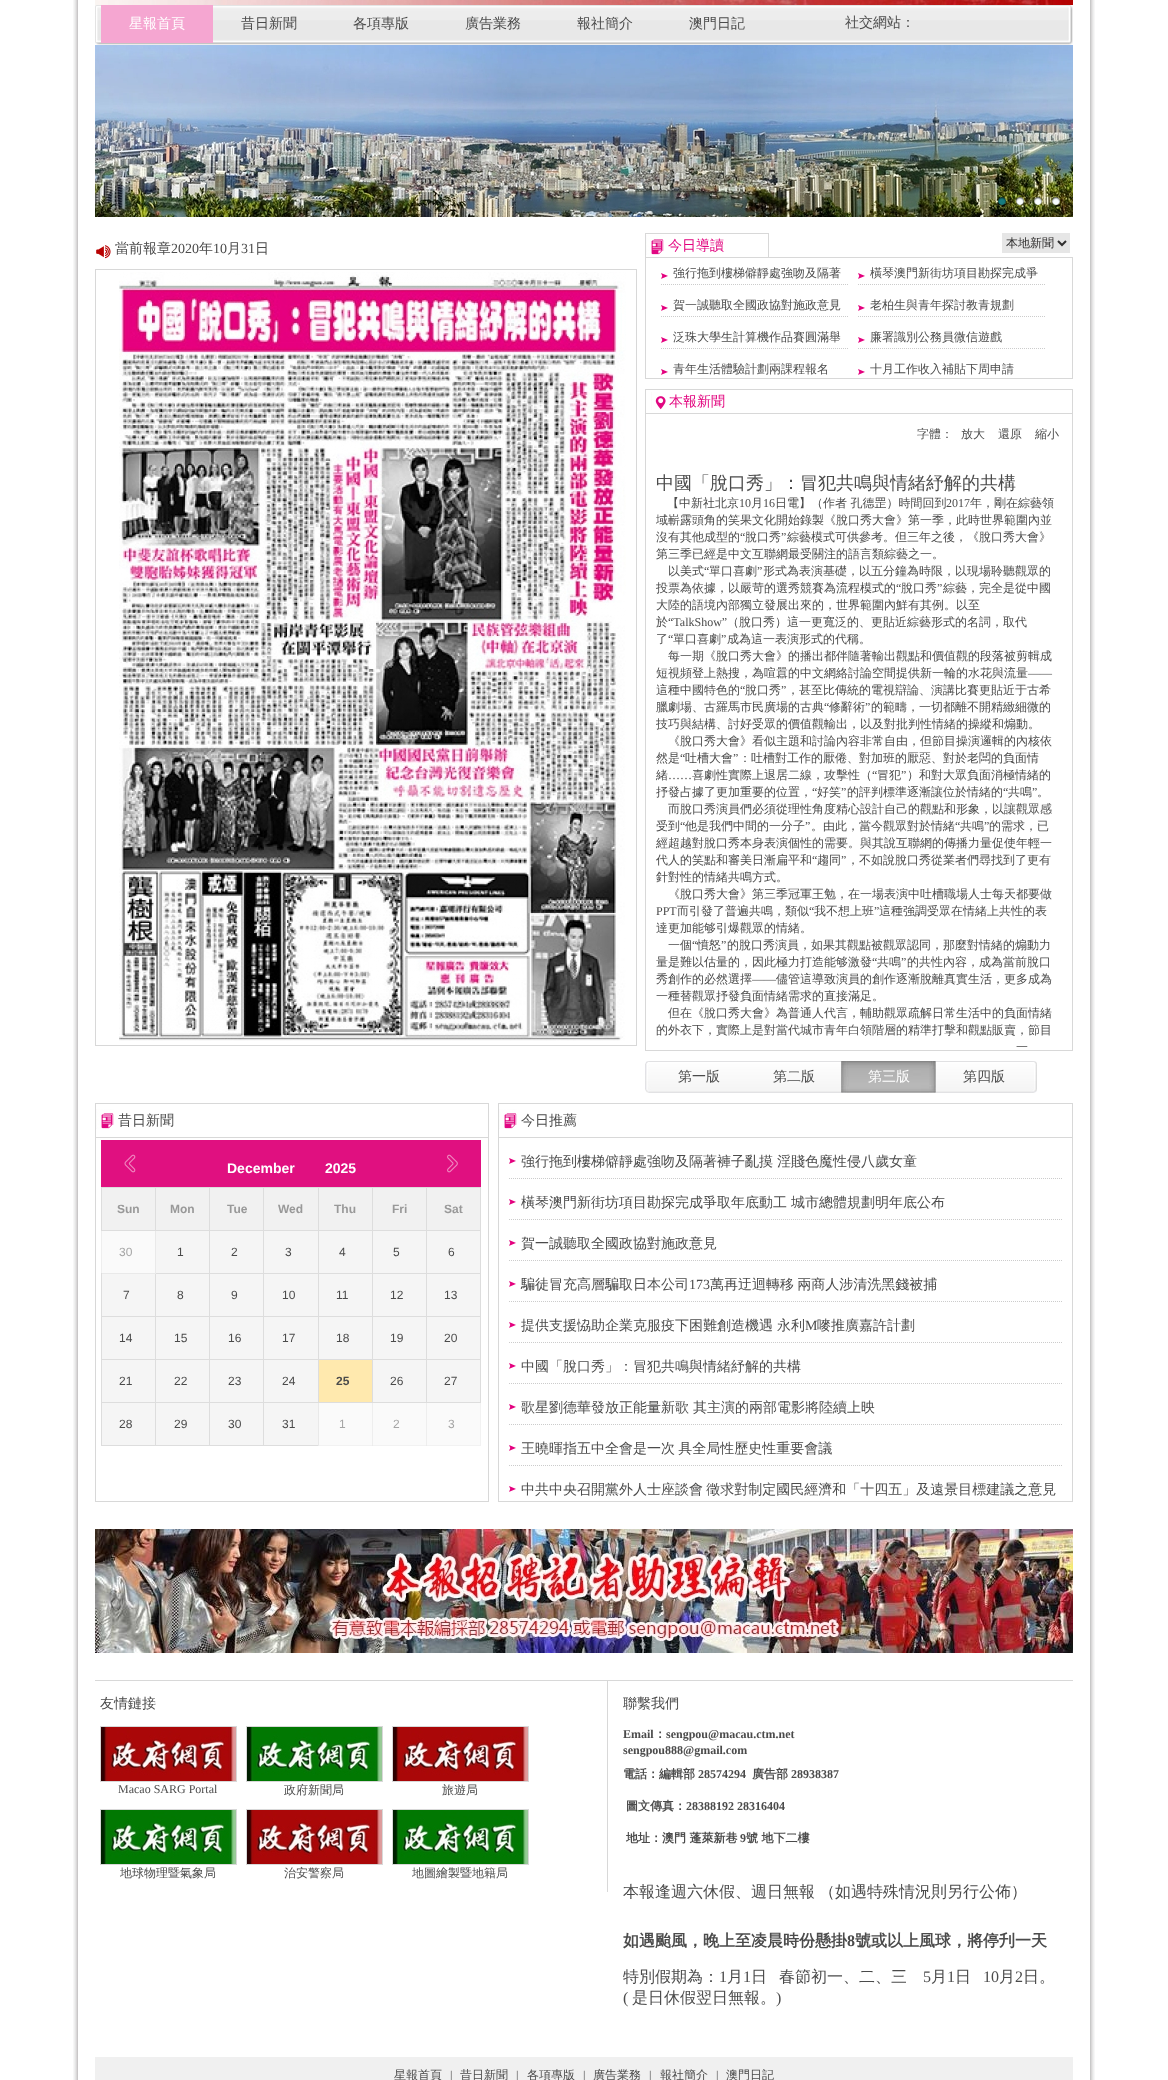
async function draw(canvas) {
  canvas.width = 1168
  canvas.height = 2080
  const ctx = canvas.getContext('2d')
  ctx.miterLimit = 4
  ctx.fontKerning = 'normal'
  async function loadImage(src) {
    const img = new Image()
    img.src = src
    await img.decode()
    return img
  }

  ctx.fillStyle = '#fff'
  ctx.fillRect(0, 0, 1168, 2080)
  ctx.drawImage(await loadImage('image0.png'), 73, 0, 1022, 2080)
  ctx.drawImage(await loadImage('image1.png'), 95, 0, 978, 5)
  ctx.drawImage(await loadImage('image2.png'), 95, 5, 6, 40)
  ctx.drawImage(await loadImage('image3.png'), 101, 5, 672, 40)
  ctx.fillStyle = '#f5a6d1'
  ctx.fillRect(101, 5, 112, 38)
  ctx.font = '500 14px WenQuanYi Zen Hei'
  ctx.fillStyle = '#fff'
  ctx.fillText('星報首頁', 129, 28)
  ctx.fillStyle = '#4b4b4b'
  ctx.fillText('昔日新聞', 241, 28)
  ctx.fillText('各項專版', 353, 28)
  ctx.fillText('廣告業務', 465, 28)
  ctx.fillText('報社簡介', 577, 28)
  ctx.fillText('澳門日記', 689, 28)
  ctx.drawImage(await loadImage('image4.png'), 773, 5, 294, 40)
  ctx.fillText('社交網站：', 845, 27)
  ctx.drawImage(await loadImage('image5.png'), 1067, 5, 6, 40)
  ctx.drawImage(await loadImage('image6.png'), 95, 45, 978, 172)
  ctx.drawImage(await loadImage('image7.png'), 998, 197, 8, 8)
  ctx.drawImage(await loadImage('image8.png'), 1016, 197, 8, 8)
  ctx.drawImage(await loadImage('image9.png'), 1034, 197, 8, 8)
  ctx.drawImage(await loadImage('image10.png'), 1052, 197, 8, 8)
  ctx.drawImage(await loadImage('image11.png'), 96, 245, 15, 14)
  ctx.fillText('當前報章', 115, 253)
  ctx.font = '14px Liberation Serif'
  ctx.fillText('2020', 171, 253)
  ctx.font = '500 14px WenQuanYi Zen Hei'
  ctx.fillText('年', 199, 253)
  ctx.font = '14px Liberation Serif'
  ctx.fillText('10', 213, 253)
  ctx.font = '500 14px WenQuanYi Zen Hei'
  ctx.fillText('月', 227, 253)
  ctx.font = '14px Liberation Serif'
  ctx.fillText('31', 241, 253)
  ctx.font = '500 14px WenQuanYi Zen Hei'
  ctx.fillText('日', 255, 253)
  ctx.strokeStyle = '#d8d8d8'
  ctx.strokeRect(95.5, 269.5, 541, 776)
  ctx.drawImage(await loadImage('image12.png'), 119, 272, 507, 769)
  ctx.drawImage(await loadImage('image13.png'), 646, 235, 18, 20)
  ctx.fillStyle = '#d8d8d8'
  ctx.fillRect(645, 233, 124, 1)
  ctx.fillRect(768, 233, 1, 24)
  ctx.fillRect(645, 233, 1, 24)
  ctx.fillStyle = '#e2007d'
  ctx.fillText('今日導讀', 668, 250)
  ctx.fillStyle = '#e6e6e6'
  ctx.fillRect(1002, 233, 68, 20)
  ctx.beginPath()
  ctx.moveTo(1058, 241)
  ctx.lineTo(1062, 245)
  ctx.lineTo(1066, 241)
  ctx.strokeStyle = '#302f2f'
  ctx.lineWidth = 2
  ctx.stroke()
  ctx.font = '500 12px WenQuanYi Zen Hei'
  ctx.fillStyle = '#302f2f'
  ctx.fillText('本地新聞', 1006, 247)
  ctx.strokeStyle = '#d8d8d8'
  ctx.lineWidth = 1
  ctx.strokeRect(645.5, 257.5, 427, 121)
  ctx.drawImage(await loadImage('image14.png'), 661, 273, 7, 6)
  ctx.beginPath()
  ctx.moveTo(661, 284.5)
  ctx.lineTo(848, 284.5)
  ctx.strokeStyle = '#ccc'
  ctx.setLineDash([1, 1])
  ctx.stroke()
  ctx.fillStyle = '#4b4b4b'
  ctx.fillText('強行拖到樓梯僻靜處強吻及隔著', 673, 277)
  ctx.drawImage(await loadImage('image14.png'), 858, 273, 7, 6)
  ctx.beginPath()
  ctx.moveTo(858, 284.5)
  ctx.lineTo(1045, 284.5)
  ctx.stroke()
  ctx.fillText('橫琴澳門新街坊項目勘探完成爭', 870, 277)
  ctx.drawImage(await loadImage('image14.png'), 661, 305, 7, 6)
  ctx.beginPath()
  ctx.moveTo(661, 316.5)
  ctx.lineTo(848, 316.5)
  ctx.stroke()
  ctx.fillText('賀一誠聽取全國政協對施政意見', 673, 309)
  ctx.drawImage(await loadImage('image14.png'), 858, 305, 7, 6)
  ctx.beginPath()
  ctx.moveTo(858, 316.5)
  ctx.lineTo(1045, 316.5)
  ctx.stroke()
  ctx.fillText('老柏生與青年探討教青規劃', 870, 309)
  ctx.drawImage(await loadImage('image14.png'), 661, 337, 7, 6)
  ctx.beginPath()
  ctx.moveTo(661, 348.5)
  ctx.lineTo(848, 348.5)
  ctx.stroke()
  ctx.fillText('泛珠大學生計算機作品賽圓滿舉', 673, 341)
  ctx.drawImage(await loadImage('image14.png'), 858, 337, 7, 6)
  ctx.beginPath()
  ctx.moveTo(858, 348.5)
  ctx.lineTo(1045, 348.5)
  ctx.stroke()
  ctx.fillText('廉署識別公務員微信遊戲', 870, 341)
  ctx.drawImage(await loadImage('image14.png'), 661, 369, 7, 6)
  ctx.fillText('青年生活體驗計劃兩課程報名', 673, 373)
  ctx.drawImage(await loadImage('image14.png'), 858, 369, 7, 6)
  ctx.fillText('十月工作收入補貼下周申請', 870, 373)
  ctx.strokeStyle = '#d8d8d8'
  ctx.setLineDash([])
  ctx.strokeRect(645.5, 389.5, 427, 661)
  ctx.drawImage(await loadImage('image15.png'), 651, 392, 15, 18)
  ctx.fillStyle = '#d8d8d8'
  ctx.fillRect(646, 413, 426, 1)
  ctx.font = '500 14px WenQuanYi Zen Hei'
  ctx.fillStyle = '#e2007d'
  ctx.fillText('本報新聞', 669, 406)
  ctx.font = '500 12px WenQuanYi Zen Hei'
  ctx.fillStyle = '#4b4b4b'
  ctx.fillText('字體：', 917, 438)
  ctx.fillText('放大', 961, 438)
  ctx.fillText('還原', 998, 438)
  ctx.fillText('縮小', 1035, 438)
  ctx.font = '500 18px WenQuanYi Zen Hei'
  ctx.fillText('中國「脫口秀」：冒犯共鳴與情緒紓解的共構', 656, 489)
  ctx.font = '500 12px WenQuanYi Zen Hei'
  ctx.fillText('【中新社北京', 667, 507)
  ctx.font = '12px Liberation Serif'
  ctx.fillText('10', 739, 507)
  ctx.font = '500 12px WenQuanYi Zen Hei'
  ctx.fillText('月', 751, 507)
  ctx.font = '12px Liberation Serif'
  ctx.fillText('16', 763, 507)
  ctx.font = '500 12px WenQuanYi Zen Hei'
  ctx.fillText('日電】（作者 孔德罡）時間回到', 775, 507)
  ctx.font = '12px Liberation Serif'
  ctx.fillText('2017', 946, 507)
  ctx.font = '500 12px WenQuanYi Zen Hei'
  ctx.fillText('年，剛在綜藝領', 970, 507)
  ctx.fillText('域嶄露頭角的笑果文化開始錄製《脫口秀大會》第一季，此時世界範圍內並', 656, 524)
  ctx.fillText('沒有其他成型的', 656, 541)
  ctx.font = '12px Liberation Serif'
  ctx.fillText('“', 740, 541)
  ctx.font = '500 12px WenQuanYi Zen Hei'
  ctx.fillText('脫口秀', 745, 541)
  ctx.font = '12px Liberation Serif'
  ctx.fillText('”', 781, 541)
  ctx.font = '500 12px WenQuanYi Zen Hei'
  ctx.fillText('綜藝模式可供參考。但三年之後，《脫口秀大會》', 787, 541)
  ctx.fillText('第三季已經是中文互聯網最受關注的語言類綜藝之一。', 656, 558)
  ctx.fillText('以美式', 668, 575)
  ctx.font = '12px Liberation Serif'
  ctx.fillText('“', 704, 575)
  ctx.font = '500 12px WenQuanYi Zen Hei'
  ctx.fillText('單口喜劇', 709, 575)
  ctx.font = '12px Liberation Serif'
  ctx.fillText('”', 757, 575)
  ctx.font = '500 12px WenQuanYi Zen Hei'
  ctx.fillText('形式為表演基礎，以五分鐘為時限，以現場聆聽觀眾的', 763, 575)
  ctx.fillText('投票為依據，以嚴苛的選秀競賽為流程模式的', 656, 592)
  ctx.font = '12px Liberation Serif'
  ctx.fillText('“', 896, 592)
  ctx.font = '500 12px WenQuanYi Zen Hei'
  ctx.fillText('脫口秀', 901, 592)
  ctx.font = '12px Liberation Serif'
  ctx.fillText('”', 937, 592)
  ctx.font = '500 12px WenQuanYi Zen Hei'
  ctx.fillText('綜藝，完全是從中國', 943, 592)
  ctx.fillText('大陸的語境內部獨立發展出來的，世界範圍內鮮有其例。以至', 656, 609)
  ctx.fillText('於', 656, 626)
  ctx.font = '12px Liberation Serif'
  ctx.fillText('“TalkShow”', 668, 626)
  ctx.font = '500 12px WenQuanYi Zen Hei'
  ctx.fillText('（脫口秀）這一更寬泛的、更貼近綜藝形式的名詞，取代', 727, 626)
  ctx.fillText('了', 656, 643)
  ctx.font = '12px Liberation Serif'
  ctx.fillText('“', 668, 643)
  ctx.font = '500 12px WenQuanYi Zen Hei'
  ctx.fillText('單口喜劇', 673, 643)
  ctx.font = '12px Liberation Serif'
  ctx.fillText('”', 721, 643)
  ctx.font = '500 12px WenQuanYi Zen Hei'
  ctx.fillText('成為這一表演形式的代稱。', 727, 643)
  ctx.fillText('每一期《脫口秀大會》的播出都伴隨著輸出觀點和價值觀的段落被剪輯成', 668, 660)
  ctx.fillText('短視頻登上熱搜，為喧囂的中文網絡討論空間提供新一輪的水花與流量', 656, 677)
  ctx.font = '12px Liberation Serif'
  ctx.fillText('——', 1028, 677)
  ctx.font = '500 12px WenQuanYi Zen Hei'
  ctx.fillText('這種中國特色的', 656, 694)
  ctx.font = '12px Liberation Serif'
  ctx.fillText('“', 740, 694)
  ctx.font = '500 12px WenQuanYi Zen Hei'
  ctx.fillText('脫口秀', 745, 694)
  ctx.font = '12px Liberation Serif'
  ctx.fillText('”', 781, 694)
  ctx.font = '500 12px WenQuanYi Zen Hei'
  ctx.fillText('，甚至比傳統的電視辯論、演講比賽更貼近于古希', 787, 694)
  ctx.fillText('臘劇場、古羅馬市民廣場的古典', 656, 711)
  ctx.font = '12px Liberation Serif'
  ctx.fillText('“', 824, 711)
  ctx.font = '500 12px WenQuanYi Zen Hei'
  ctx.fillText('修辭術', 829, 711)
  ctx.font = '12px Liberation Serif'
  ctx.fillText('”', 865, 711)
  ctx.font = '500 12px WenQuanYi Zen Hei'
  ctx.fillText('的範疇，一切都離不開精緻細微的', 871, 711)
  ctx.fillText('技巧與結構、討好受眾的價值觀輸出，以及對批判性情緒的操縱和煽動。', 656, 728)
  ctx.fillText('《脫口秀大會》看似主題和討論內容非常自由，但節目操演邏輯的內核依', 668, 745)
  ctx.fillText('然是', 656, 762)
  ctx.font = '12px Liberation Serif'
  ctx.fillText('“', 680, 762)
  ctx.font = '500 12px WenQuanYi Zen Hei'
  ctx.fillText('吐槽大會', 685, 762)
  ctx.font = '12px Liberation Serif'
  ctx.fillText('”', 733, 762)
  ctx.font = '500 12px WenQuanYi Zen Hei'
  ctx.fillText('：吐槽對工作的厭倦、對加班的厭惡、對於老闆的負面情', 739, 762)
  ctx.fillText('緒', 656, 779)
  ctx.fillText('喜劇性實際上退居二線，攻擊性（', 692, 779)
  ctx.font = '12px Liberation Serif'
  ctx.fillText('“', 872, 779)
  ctx.font = '500 12px WenQuanYi Zen Hei'
  ctx.fillText('冒犯', 877, 779)
  ctx.font = '12px Liberation Serif'
  ctx.fillText('”', 901, 779)
  ctx.font = '500 12px WenQuanYi Zen Hei'
  ctx.fillText('）和對大眾負面消極情緒的', 907, 779)
  ctx.font = '12px Liberation Serif'
  ctx.fillText('……', 668, 779)
  ctx.font = '500 12px WenQuanYi Zen Hei'
  ctx.fillText('抒發占據了更加重要的位置，', 656, 796)
  ctx.font = '12px Liberation Serif'
  ctx.fillText('“', 812, 796)
  ctx.font = '500 12px WenQuanYi Zen Hei'
  ctx.fillText('好笑', 817, 796)
  ctx.font = '12px Liberation Serif'
  ctx.fillText('”', 841, 796)
  ctx.font = '500 12px WenQuanYi Zen Hei'
  ctx.fillText('的評判標準逐漸讓位於情緒的', 847, 796)
  ctx.font = '12px Liberation Serif'
  ctx.fillText('“', 1003, 796)
  ctx.font = '500 12px WenQuanYi Zen Hei'
  ctx.fillText('共鳴', 1008, 796)
  ctx.font = '12px Liberation Serif'
  ctx.fillText('”', 1032, 796)
  ctx.font = '500 12px WenQuanYi Zen Hei'
  ctx.fillText('。', 1037, 796)
  ctx.fillText('而脫口秀演員們必須從理性角度精心設計自己的觀點和形象，以讓觀眾感', 668, 813)
  ctx.fillText('受到', 656, 830)
  ctx.font = '12px Liberation Serif'
  ctx.fillText('“', 680, 830)
  ctx.font = '500 12px WenQuanYi Zen Hei'
  ctx.fillText('他是我們中間的一分子', 685, 830)
  ctx.font = '12px Liberation Serif'
  ctx.fillText('”', 805, 830)
  ctx.font = '500 12px WenQuanYi Zen Hei'
  ctx.fillText('。由此，當今觀眾對於情緒', 811, 830)
  ctx.font = '12px Liberation Serif'
  ctx.fillText('“', 955, 830)
  ctx.font = '500 12px WenQuanYi Zen Hei'
  ctx.fillText('共鳴', 960, 830)
  ctx.font = '12px Liberation Serif'
  ctx.fillText('”', 984, 830)
  ctx.font = '500 12px WenQuanYi Zen Hei'
  ctx.fillText('的需求，已', 989, 830)
  ctx.fillText('經超越對脫口秀本身表演個性的需要。與其說互聯網的傳播力量促使年輕一', 656, 847)
  ctx.fillText('代人的笑點和審美日漸扁平和', 656, 864)
  ctx.font = '12px Liberation Serif'
  ctx.fillText('“', 812, 864)
  ctx.font = '500 12px WenQuanYi Zen Hei'
  ctx.fillText('趨同', 817, 864)
  ctx.font = '12px Liberation Serif'
  ctx.fillText('”', 841, 864)
  ctx.font = '500 12px WenQuanYi Zen Hei'
  ctx.fillText('，不如說脫口秀從業者們尋找到了更有', 847, 864)
  ctx.fillText('針對性的情緒共鳴方式。', 656, 881)
  ctx.fillText('《脫口秀大會》第三季冠軍王勉，在一場表演中吐槽職場人士每天都要做', 668, 898)
  ctx.font = '12px Liberation Serif'
  ctx.fillText('PPT', 656, 915)
  ctx.font = '500 12px WenQuanYi Zen Hei'
  ctx.fillText('而引發了普遍共鳴，類似', 677, 915)
  ctx.font = '12px Liberation Serif'
  ctx.fillText('“', 809, 915)
  ctx.font = '500 12px WenQuanYi Zen Hei'
  ctx.fillText('我不想上班', 814, 915)
  ctx.font = '12px Liberation Serif'
  ctx.fillText('”', 874, 915)
  ctx.font = '500 12px WenQuanYi Zen Hei'
  ctx.fillText('這種強調受眾在情緒上共性的表', 879, 915)
  ctx.fillText('達更加能够引爆觀眾的情緒。', 656, 932)
  ctx.fillText('一個', 668, 949)
  ctx.font = '12px Liberation Serif'
  ctx.fillText('“', 692, 949)
  ctx.font = '500 12px WenQuanYi Zen Hei'
  ctx.fillText('憤怒', 697, 949)
  ctx.font = '12px Liberation Serif'
  ctx.fillText('”', 721, 949)
  ctx.font = '500 12px WenQuanYi Zen Hei'
  ctx.fillText('的脫口秀演員，如果其觀點被觀眾認同，那麼對情緒的煽動力', 727, 949)
  ctx.fillText('量是難以估量的，因此極力打造能够激發', 656, 966)
  ctx.font = '12px Liberation Serif'
  ctx.fillText('“', 872, 966)
  ctx.font = '500 12px WenQuanYi Zen Hei'
  ctx.fillText('共鳴', 877, 966)
  ctx.font = '12px Liberation Serif'
  ctx.fillText('”', 901, 966)
  ctx.font = '500 12px WenQuanYi Zen Hei'
  ctx.fillText('的共性內容，成為當前脫口', 907, 966)
  ctx.fillText('秀創作的必然選擇', 656, 983)
  ctx.font = '12px Liberation Serif'
  ctx.fillText('——', 752, 983)
  ctx.font = '500 12px WenQuanYi Zen Hei'
  ctx.fillText('儘管這導致演員的創作逐漸脫離真實生活，更多成為', 776, 983)
  ctx.fillText('一種替觀眾抒發負面情緒需求的直接滿足。', 656, 1000)
  ctx.fillText('但在《脫口秀大會》為普通人代言，輔助觀眾疏解日常生活中的負面情緒', 668, 1017)
  ctx.fillText('的外衣下，實際上是對當代城市青年白領階層的精準打擊和觀點販賣，節目', 656, 1034)
  ctx.fillText('一', 1016, 1051)
  ctx.drawImage(await loadImage('image16.png'), 645, 1061, 6, 32)
  ctx.drawImage(await loadImage('image17.png'), 651, 1061, 380, 32)
  ctx.font = '500 14px WenQuanYi Zen Hei'
  ctx.fillText('第一版', 678, 1081)
  ctx.fillText('第二版', 773, 1081)
  ctx.drawImage(await loadImage('image18.png'), 841, 1061, 95, 32)
  ctx.fillStyle = '#fff'
  ctx.fillText('第三版', 868, 1081)
  ctx.fillStyle = '#4b4b4b'
  ctx.fillText('第四版', 963, 1081)
  ctx.drawImage(await loadImage('image19.png'), 1031, 1061, 6, 32)
  ctx.strokeRect(95.5, 1103.5, 393, 398)
  ctx.drawImage(await loadImage('image13.png'), 96, 1109, 18, 20)
  ctx.fillStyle = '#d8d8d8'
  ctx.fillRect(96, 1137, 392, 1)
  ctx.fillStyle = '#4b4b4b'
  ctx.fillText('昔日新聞', 118, 1125)
  ctx.fillStyle = '#e01080'
  ctx.fillRect(101, 1140, 380, 47)
  ctx.drawImage(await loadImage('image20.png'), 124, 1154, 12, 19)
  ctx.font = 'bold 14px Liberation Sans'
  ctx.fillStyle = '#fff'
  ctx.fillText('December', 227, 1173)
  ctx.fillText('2025', 325, 1173)
  ctx.drawImage(await loadImage('image21.png'), 447, 1154, 11, 19)
  ctx.fillStyle = '#f1f1f1'
  ctx.fillRect(102, 1188, 53, 42)
  ctx.fillStyle = '#ddd'
  ctx.fillRect(426, 1187, 55, 1)
  ctx.fillRect(426, 1230, 55, 1)
  ctx.fillRect(426, 1273, 55, 1)
  ctx.fillRect(426, 1316, 55, 1)
  ctx.fillRect(426, 1359, 55, 1)
  ctx.fillStyle = '#dddddd80'
  ctx.fillRect(480, 1402, 1, 44)
  ctx.fillStyle = '#ddd'
  ctx.fillRect(480, 1359, 1, 44)
  ctx.fillStyle = '#eee'
  ctx.fillRect(426, 1445, 55, 1)
  ctx.fillStyle = '#dddddd80'
  ctx.fillRect(426, 1402, 1, 44)
  ctx.fillRect(426, 1402, 1, 44)
  ctx.fillStyle = '#ddd'
  ctx.fillRect(426, 1402, 55, 1)
  ctx.fillRect(426, 1359, 1, 44)
  ctx.fillRect(372, 1359, 55, 1)
  ctx.fillRect(426, 1316, 1, 44)
  ctx.fillRect(372, 1316, 55, 1)
  ctx.fillRect(426, 1273, 1, 44)
  ctx.fillRect(372, 1273, 55, 1)
  ctx.fillRect(426, 1230, 1, 44)
  ctx.fillRect(372, 1230, 55, 1)
  ctx.fillRect(426, 1187, 1, 44)
  ctx.fillRect(372, 1187, 55, 1)
  ctx.fillStyle = '#dddddd80'
  ctx.fillRect(372, 1445, 55, 1)
  ctx.fillRect(372, 1402, 1, 44)
  ctx.fillRect(372, 1402, 1, 44)
  ctx.fillStyle = '#ddd'
  ctx.fillRect(372, 1402, 55, 1)
  ctx.fillRect(372, 1359, 1, 44)
  ctx.fillRect(318, 1359, 55, 1)
  ctx.fillRect(372, 1316, 1, 44)
  ctx.fillRect(318, 1316, 55, 1)
  ctx.fillRect(372, 1273, 1, 44)
  ctx.fillRect(318, 1273, 55, 1)
  ctx.fillRect(372, 1230, 1, 44)
  ctx.fillRect(318, 1230, 55, 1)
  ctx.fillRect(372, 1187, 1, 44)
  ctx.fillRect(318, 1187, 55, 1)
  ctx.fillRect(263, 1402, 56, 1)
  ctx.fillStyle = '#dddddd80'
  ctx.fillRect(318, 1445, 55, 1)
  ctx.fillStyle = '#ddd'
  ctx.fillRect(318, 1402, 1, 44)
  ctx.fillRect(318, 1402, 55, 1)
  ctx.fillRect(318, 1359, 1, 44)
  ctx.fillRect(263, 1359, 56, 1)
  ctx.fillRect(318, 1316, 1, 44)
  ctx.fillRect(263, 1316, 56, 1)
  ctx.fillRect(318, 1273, 1, 44)
  ctx.fillRect(263, 1273, 56, 1)
  ctx.fillRect(318, 1230, 1, 44)
  ctx.fillRect(263, 1230, 56, 1)
  ctx.fillRect(318, 1187, 1, 44)
  ctx.fillRect(263, 1187, 56, 1)
  ctx.fillRect(263, 1445, 56, 1)
  ctx.fillRect(263, 1402, 1, 44)
  ctx.fillRect(209, 1402, 55, 1)
  ctx.fillRect(263, 1359, 1, 44)
  ctx.fillRect(209, 1359, 55, 1)
  ctx.fillRect(263, 1316, 1, 44)
  ctx.fillRect(209, 1316, 55, 1)
  ctx.fillRect(263, 1273, 1, 44)
  ctx.fillRect(209, 1273, 55, 1)
  ctx.fillRect(263, 1230, 1, 44)
  ctx.fillRect(209, 1230, 55, 1)
  ctx.fillRect(263, 1187, 1, 44)
  ctx.fillRect(209, 1187, 55, 1)
  ctx.fillRect(209, 1445, 55, 1)
  ctx.fillRect(209, 1402, 1, 44)
  ctx.fillRect(155, 1402, 55, 1)
  ctx.fillRect(209, 1359, 1, 44)
  ctx.fillRect(155, 1359, 55, 1)
  ctx.fillRect(209, 1316, 1, 44)
  ctx.fillRect(155, 1316, 55, 1)
  ctx.fillRect(209, 1273, 1, 44)
  ctx.fillRect(155, 1273, 55, 1)
  ctx.fillRect(209, 1230, 1, 44)
  ctx.fillRect(155, 1230, 55, 1)
  ctx.fillRect(209, 1187, 1, 44)
  ctx.fillRect(155, 1187, 55, 1)
  ctx.fillRect(155, 1445, 55, 1)
  ctx.fillRect(155, 1402, 1, 44)
  ctx.fillRect(101, 1402, 55, 1)
  ctx.fillRect(155, 1359, 1, 44)
  ctx.fillRect(101, 1359, 55, 1)
  ctx.fillRect(155, 1316, 1, 44)
  ctx.fillRect(101, 1316, 55, 1)
  ctx.fillRect(155, 1273, 1, 44)
  ctx.fillRect(101, 1273, 55, 1)
  ctx.fillRect(155, 1230, 1, 44)
  ctx.fillRect(155, 1187, 1, 44)
  ctx.fillRect(101, 1187, 55, 1)
  ctx.fillRect(101, 1445, 55, 1)
  ctx.fillRect(101, 1402, 1, 44)
  ctx.fillRect(101, 1359, 1, 44)
  ctx.fillRect(101, 1316, 1, 44)
  ctx.fillRect(101, 1273, 1, 44)
  ctx.fillStyle = '#dddddd80'
  ctx.fillRect(101, 1230, 1, 44)
  ctx.fillStyle = '#ddd'
  ctx.fillRect(101, 1230, 55, 1)
  ctx.fillRect(101, 1187, 1, 44)
  ctx.font = 'bold 12px Liberation Sans'
  ctx.fillStyle = '#999'
  ctx.fillText('Sun', 117, 1213)
  ctx.fillStyle = '#f1f1f1'
  ctx.fillRect(156, 1188, 53, 42)
  ctx.fillStyle = '#999'
  ctx.fillText('Mon', 170, 1213)
  ctx.fillStyle = '#f1f1f1'
  ctx.fillRect(210, 1188, 53, 42)
  ctx.fillStyle = '#999'
  ctx.fillText('Tue', 227, 1213)
  ctx.fillStyle = '#f1f1f1'
  ctx.fillRect(264, 1188, 54, 42)
  ctx.fillStyle = '#999'
  ctx.fillText('Wed', 278, 1213)
  ctx.fillStyle = '#f1f1f1'
  ctx.fillRect(319, 1188, 53, 42)
  ctx.fillStyle = '#999'
  ctx.fillText('Thu', 334, 1213)
  ctx.fillStyle = '#f1f1f1'
  ctx.fillRect(373, 1188, 53, 42)
  ctx.fillStyle = '#999'
  ctx.fillText('Fri', 392, 1213)
  ctx.fillStyle = '#f1f1f1'
  ctx.fillRect(427, 1188, 53, 42)
  ctx.fillStyle = '#ddd'
  ctx.fillRect(480, 1316, 1, 44)
  ctx.fillRect(480, 1273, 1, 44)
  ctx.fillRect(480, 1230, 1, 44)
  ctx.fillRect(480, 1187, 1, 44)
  ctx.fillStyle = '#999'
  ctx.fillText('Sat', 444, 1213)
  ctx.fillStyle = '#f5f5f580'
  ctx.fillRect(102, 1231, 54, 43)
  ctx.font = '12px Liberation Sans'
  ctx.fillStyle = '#a5a5a5'
  ctx.fillText('30', 119, 1256)
  ctx.fillStyle = '#f5f5f5'
  ctx.fillRect(156, 1231, 53, 42)
  ctx.fillStyle = '#4b4b4b'
  ctx.fillText('1', 177, 1256)
  ctx.fillStyle = '#f5f5f5'
  ctx.fillRect(210, 1231, 53, 42)
  ctx.fillStyle = '#4b4b4b'
  ctx.fillText('2', 231, 1256)
  ctx.fillStyle = '#f5f5f5'
  ctx.fillRect(264, 1231, 54, 42)
  ctx.fillStyle = '#4b4b4b'
  ctx.fillText('3', 285, 1256)
  ctx.fillStyle = '#f5f5f5'
  ctx.fillRect(319, 1231, 53, 42)
  ctx.fillStyle = '#4b4b4b'
  ctx.fillText('4', 339, 1256)
  ctx.fillStyle = '#f5f5f5'
  ctx.fillRect(373, 1231, 53, 42)
  ctx.fillStyle = '#4b4b4b'
  ctx.fillText('5', 393, 1256)
  ctx.fillStyle = '#f5f5f5'
  ctx.fillRect(427, 1231, 53, 42)
  ctx.fillStyle = '#4b4b4b'
  ctx.fillText('6', 448, 1256)
  ctx.fillStyle = '#f5f5f5'
  ctx.fillRect(102, 1274, 53, 42)
  ctx.fillStyle = '#4b4b4b'
  ctx.fillText('7', 123, 1299)
  ctx.fillStyle = '#f5f5f5'
  ctx.fillRect(156, 1274, 53, 42)
  ctx.fillStyle = '#4b4b4b'
  ctx.fillText('8', 177, 1299)
  ctx.fillStyle = '#f5f5f5'
  ctx.fillRect(210, 1274, 53, 42)
  ctx.fillStyle = '#4b4b4b'
  ctx.fillText('9', 231, 1299)
  ctx.fillStyle = '#f5f5f5'
  ctx.fillRect(264, 1274, 54, 42)
  ctx.fillStyle = '#4b4b4b'
  ctx.fillText('10', 282, 1299)
  ctx.fillStyle = '#f5f5f5'
  ctx.fillRect(319, 1274, 53, 42)
  ctx.fillStyle = '#4b4b4b'
  ctx.fillText('11', 336, 1299)
  ctx.fillStyle = '#f5f5f5'
  ctx.fillRect(373, 1274, 53, 42)
  ctx.fillStyle = '#4b4b4b'
  ctx.fillText('12', 390, 1299)
  ctx.fillStyle = '#f5f5f5'
  ctx.fillRect(427, 1274, 53, 42)
  ctx.fillStyle = '#4b4b4b'
  ctx.fillText('13', 444, 1299)
  ctx.fillStyle = '#f5f5f5'
  ctx.fillRect(102, 1317, 53, 42)
  ctx.fillStyle = '#4b4b4b'
  ctx.fillText('14', 119, 1342)
  ctx.fillStyle = '#f5f5f5'
  ctx.fillRect(156, 1317, 53, 42)
  ctx.fillStyle = '#4b4b4b'
  ctx.fillText('15', 174, 1342)
  ctx.fillStyle = '#f5f5f5'
  ctx.fillRect(210, 1317, 53, 42)
  ctx.fillStyle = '#4b4b4b'
  ctx.fillText('16', 228, 1342)
  ctx.fillStyle = '#f5f5f5'
  ctx.fillRect(264, 1317, 54, 42)
  ctx.fillStyle = '#4b4b4b'
  ctx.fillText('17', 282, 1342)
  ctx.fillStyle = '#f5f5f5'
  ctx.fillRect(319, 1317, 53, 42)
  ctx.fillStyle = '#4b4b4b'
  ctx.fillText('18', 336, 1342)
  ctx.fillStyle = '#f5f5f5'
  ctx.fillRect(373, 1317, 53, 42)
  ctx.fillStyle = '#4b4b4b'
  ctx.fillText('19', 390, 1342)
  ctx.fillStyle = '#f5f5f5'
  ctx.fillRect(427, 1317, 53, 42)
  ctx.fillStyle = '#4b4b4b'
  ctx.fillText('20', 444, 1342)
  ctx.fillStyle = '#f5f5f5'
  ctx.fillRect(102, 1360, 53, 42)
  ctx.fillStyle = '#4b4b4b'
  ctx.fillText('21', 119, 1385)
  ctx.fillStyle = '#f5f5f5'
  ctx.fillRect(156, 1360, 53, 42)
  ctx.fillStyle = '#4b4b4b'
  ctx.fillText('22', 174, 1385)
  ctx.fillStyle = '#f5f5f5'
  ctx.fillRect(210, 1360, 53, 42)
  ctx.fillStyle = '#4b4b4b'
  ctx.fillText('23', 228, 1385)
  ctx.fillStyle = '#f5f5f5'
  ctx.fillRect(264, 1360, 54, 42)
  ctx.fillStyle = '#4b4b4b'
  ctx.fillText('24', 282, 1385)
  ctx.fillStyle = '#ffe9ae'
  ctx.fillRect(319, 1360, 53, 42)
  ctx.font = 'bold 12px Liberation Sans'
  ctx.fillStyle = '#4b4b4b'
  ctx.fillText('25', 336, 1385)
  ctx.fillStyle = '#f5f5f5'
  ctx.fillRect(373, 1360, 53, 42)
  ctx.font = '12px Liberation Sans'
  ctx.fillStyle = '#4b4b4b'
  ctx.fillText('26', 390, 1385)
  ctx.fillStyle = '#f5f5f5'
  ctx.fillRect(427, 1360, 53, 42)
  ctx.fillStyle = '#4b4b4b'
  ctx.fillText('27', 444, 1385)
  ctx.fillStyle = '#f5f5f5'
  ctx.fillRect(102, 1403, 53, 42)
  ctx.fillStyle = '#4b4b4b'
  ctx.fillText('28', 119, 1428)
  ctx.fillStyle = '#f5f5f5'
  ctx.fillRect(156, 1403, 53, 42)
  ctx.fillStyle = '#4b4b4b'
  ctx.fillText('29', 174, 1428)
  ctx.fillStyle = '#f5f5f5'
  ctx.fillRect(210, 1403, 53, 42)
  ctx.fillStyle = '#4b4b4b'
  ctx.fillText('30', 228, 1428)
  ctx.fillStyle = '#f5f5f5'
  ctx.fillRect(264, 1403, 54, 42)
  ctx.fillStyle = '#4b4b4b'
  ctx.fillText('31', 282, 1428)
  ctx.fillStyle = '#f5f5f580'
  ctx.fillRect(318, 1403, 54, 43)
  ctx.fillStyle = '#a5a5a5'
  ctx.fillText('1', 339, 1428)
  ctx.fillStyle = '#f5f5f580'
  ctx.fillRect(372, 1403, 54, 43)
  ctx.fillStyle = '#a5a5a5'
  ctx.fillText('2', 393, 1428)
  ctx.fillStyle = '#f5f5f580'
  ctx.fillRect(426, 1403, 55, 43)
  ctx.fillStyle = '#a5a5a5'
  ctx.fillText('3', 448, 1428)
  ctx.strokeRect(498.5, 1103.5, 574, 398)
  ctx.drawImage(await loadImage('image13.png'), 499, 1109, 18, 20)
  ctx.fillStyle = '#d8d8d8'
  ctx.fillRect(499, 1137, 573, 1)
  ctx.font = '500 14px WenQuanYi Zen Hei'
  ctx.fillStyle = '#4b4b4b'
  ctx.fillText('今日推薦', 521, 1125)
  ctx.drawImage(await loadImage('image14.png'), 509, 1158, 7, 6)
  ctx.beginPath()
  ctx.moveTo(509, 1178.5)
  ctx.lineTo(1062, 1178.5)
  ctx.strokeStyle = '#ccc'
  ctx.setLineDash([1, 1])
  ctx.stroke()
  ctx.fillText('強行拖到樓梯僻靜處強吻及隔著褲子亂摸', 521, 1166)
  ctx.fillText('淫賤色魔性侵八歲女童', 777, 1166)
  ctx.drawImage(await loadImage('image14.png'), 509, 1199, 7, 6)
  ctx.beginPath()
  ctx.moveTo(509, 1219.5)
  ctx.lineTo(1062, 1219.5)
  ctx.stroke()
  ctx.fillText('橫琴澳門新街坊項目勘探完成爭取年底動工', 521, 1207)
  ctx.fillText('城市總體規劃明年底公布', 791, 1207)
  ctx.drawImage(await loadImage('image14.png'), 509, 1240, 7, 6)
  ctx.beginPath()
  ctx.moveTo(509, 1260.5)
  ctx.lineTo(1062, 1260.5)
  ctx.stroke()
  ctx.fillText('賀一誠聽取全國政協對施政意見', 521, 1248)
  ctx.drawImage(await loadImage('image14.png'), 509, 1281, 7, 6)
  ctx.beginPath()
  ctx.moveTo(509, 1301.5)
  ctx.lineTo(1062, 1301.5)
  ctx.stroke()
  ctx.fillText('騙徒冒充高層騙取日本公司', 521, 1289)
  ctx.font = '14px Liberation Serif'
  ctx.fillText('173', 689, 1289)
  ctx.wordSpacing = '-1px'
  ctx.font = '500 14px WenQuanYi Zen Hei'
  ctx.fillText('萬再迂迴轉移 兩商人涉清洗黑錢被捕', 710, 1289)
  ctx.drawImage(await loadImage('image14.png'), 509, 1322, 7, 6)
  ctx.beginPath()
  ctx.moveTo(509, 1342.5)
  ctx.lineTo(1062, 1342.5)
  ctx.stroke()
  ctx.wordSpacing = '0px'
  ctx.fillText('提供支援恊助企業克服疫下困難創造機遇', 521, 1330)
  ctx.fillText('永利', 777, 1330)
  ctx.font = '14px Liberation Serif'
  ctx.fillText('M', 805, 1330)
  ctx.font = '500 14px WenQuanYi Zen Hei'
  ctx.fillText('嘜推廣嘉許計劃', 817, 1330)
  ctx.drawImage(await loadImage('image14.png'), 509, 1363, 7, 6)
  ctx.beginPath()
  ctx.moveTo(509, 1383.5)
  ctx.lineTo(1062, 1383.5)
  ctx.stroke()
  ctx.fillText('中國「脫口秀」：冒犯共鳴與情緒紓解的共構', 521, 1371)
  ctx.drawImage(await loadImage('image14.png'), 509, 1404, 7, 6)
  ctx.beginPath()
  ctx.moveTo(509, 1424.5)
  ctx.lineTo(1062, 1424.5)
  ctx.stroke()
  ctx.fillText('歌星劉德華發放正能量新歌', 521, 1412)
  ctx.fillText('其主演的兩部電影將陸續上映', 693, 1412)
  ctx.drawImage(await loadImage('image14.png'), 509, 1445, 7, 6)
  ctx.beginPath()
  ctx.moveTo(509, 1465.5)
  ctx.lineTo(1062, 1465.5)
  ctx.stroke()
  ctx.wordSpacing = '-1px'
  ctx.fillText('王曉暉指五中全會是一次 具全局性歷史性重要會議', 521, 1453)
  ctx.drawImage(await loadImage('image14.png'), 509, 1486, 7, 6)
  ctx.fillText('中共中央召開黨外人士座談會 徵求對制定國民經濟和「十四五」及遠景目標建議之意見', 521, 1494)
  ctx.drawImage(await loadImage('image22.png'), 95, 1529, 978, 124)
  ctx.fillStyle = '#d8d8d8'
  ctx.fillRect(95, 1680, 978, 1)
  ctx.fillRect(607, 1681, 1, 211)
  ctx.wordSpacing = '0px'
  ctx.fillStyle = '#4b4b4b'
  ctx.fillText('友情鏈接', 100, 1708)
  ctx.strokeStyle = '#d8d8d8'
  ctx.setLineDash([])
  ctx.strokeRect(100.5, 1726.5, 136, 55)
  ctx.drawImage(await loadImage('image23.png'), 101, 1727, 135, 54)
  ctx.font = '12px Liberation Serif'
  ctx.fillText('Macao SARG Portal', 118, 1793)
  ctx.strokeRect(246.5, 1726.5, 136, 55)
  ctx.drawImage(await loadImage('image24.png'), 247, 1727, 135, 54)
  ctx.font = '500 12px WenQuanYi Zen Hei'
  ctx.fillText('政府新聞局', 284, 1794)
  ctx.strokeRect(392.5, 1726.5, 136, 55)
  ctx.drawImage(await loadImage('image23.png'), 393, 1727, 135, 54)
  ctx.fillText('旅遊局', 442, 1794)
  ctx.strokeRect(100.5, 1809.5, 136, 55)
  ctx.drawImage(await loadImage('image24.png'), 101, 1810, 135, 54)
  ctx.fillText('地球物理暨氣象局', 120, 1877)
  ctx.strokeRect(246.5, 1809.5, 136, 55)
  ctx.drawImage(await loadImage('image23.png'), 247, 1810, 135, 54)
  ctx.fillText('治安警察局', 284, 1877)
  ctx.strokeRect(392.5, 1809.5, 136, 55)
  ctx.drawImage(await loadImage('image24.png'), 393, 1810, 135, 54)
  ctx.fillText('地圖繪製暨地籍局', 412, 1877)
  ctx.font = '500 14px WenQuanYi Zen Hei'
  ctx.fillText('聯繫我們', 623, 1708)
  ctx.font = 'bold 12px Liberation Serif'
  ctx.fillText('Email', 623, 1738)
  ctx.font = 'bold 12px WenQuanYi Zen Hei'
  ctx.fillText('：', 654, 1738)
  ctx.font = 'bold 12px Liberation Serif'
  ctx.fillText('sengpou@macau.ctm.net', 666, 1738)
  ctx.fillText('sengpou888@gmail.com', 623, 1754)
  ctx.font = 'bold 12px WenQuanYi Zen Hei'
  ctx.fillText('電話：編輯部', 623, 1778)
  ctx.font = 'bold 12px Liberation Serif'
  ctx.fillText('28574294', 698, 1778)
  ctx.font = 'bold 12px WenQuanYi Zen Hei'
  ctx.fillText('廣告部', 752, 1778)
  ctx.font = 'bold 12px Liberation Serif'
  ctx.fillText('28938387', 791, 1778)
  ctx.font = 'bold 12px WenQuanYi Zen Hei'
  ctx.fillText('圖文傳真：', 626, 1810)
  ctx.font = 'bold 12px Liberation Serif'
  ctx.fillText('28388192 28316404', 686, 1810)
  ctx.font = 'bold 12px WenQuanYi Zen Hei'
  ctx.fillText('地址：澳門 蓬萊新巷', 626, 1842)
  ctx.font = 'bold 12px Liberation Serif'
  ctx.fillText('9', 740, 1842)
  ctx.font = 'bold 12px WenQuanYi Zen Hei'
  ctx.fillText('號 地下二樓', 746, 1842)
  ctx.font = '500 16px WenQuanYi Zen Hei'
  ctx.fillText('本報逢週六休假、週日無報', 623, 1897)
  ctx.fillText('（如遇特殊情況則另行公佈）', 819, 1897)
  ctx.font = 'bold 16px WenQuanYi Zen Hei'
  ctx.fillText('如遇颱風，晚上至凌晨時份懸掛', 623, 1946)
  ctx.font = 'bold 16px Liberation Serif'
  ctx.fillText('8', 847, 1946)
  ctx.font = 'bold 16px WenQuanYi Zen Hei'
  ctx.fillText('號或以上風球，將停刋一天', 855, 1946)
  ctx.font = '500 16px WenQuanYi Zen Hei'
  ctx.fillText('特別假期為：', 623, 1982)
  ctx.font = '16px Liberation Serif'
  ctx.fillText('1', 719, 1982)
  ctx.font = '500 16px WenQuanYi Zen Hei'
  ctx.fillText('月', 727, 1982)
  ctx.font = '16px Liberation Serif'
  ctx.fillText('1', 743, 1982)
  ctx.font = '500 16px WenQuanYi Zen Hei'
  ctx.fillText('日', 751, 1982)
  ctx.fillText('春節初一、二、三', 779, 1982)
  ctx.font = '16px Liberation Serif'
  ctx.fillText('5', 923, 1982)
  ctx.font = '500 16px WenQuanYi Zen Hei'
  ctx.fillText('月', 931, 1982)
  ctx.font = '16px Liberation Serif'
  ctx.fillText('1', 947, 1982)
  ctx.font = '500 16px WenQuanYi Zen Hei'
  ctx.fillText('日', 955, 1982)
  ctx.font = '16px Liberation Serif'
  ctx.fillText('10', 983, 1982)
  ctx.font = '500 16px WenQuanYi Zen Hei'
  ctx.fillText('月', 999, 1982)
  ctx.font = '16px Liberation Serif'
  ctx.fillText('2', 1015, 1982)
  ctx.font = '500 16px WenQuanYi Zen Hei'
  ctx.fillText('日。', 1023, 1982)
  ctx.font = '16px Liberation Serif'
  ctx.fillText('(', 623, 2003)
  ctx.font = '500 16px WenQuanYi Zen Hei'
  ctx.fillText('是日休假翌日無報。', 632, 2003)
  ctx.font = '16px Liberation Serif'
  ctx.fillText(')', 776, 2003)
  ctx.fillStyle = '#f0f0f0'
  ctx.fillRect(95, 2057, 978, 23)
  ctx.font = '500 12px WenQuanYi Zen Hei'
  ctx.fillStyle = '#4b4b4b'
  ctx.fillText('星報首頁', 394, 2079)
  ctx.font = '12px Liberation Serif'
  ctx.fillText('|', 450, 2079)
  ctx.font = '500 12px WenQuanYi Zen Hei'
  ctx.fillText('昔日新聞', 460, 2079)
  ctx.font = '12px Liberation Serif'
  ctx.fillText('|', 516, 2079)
  ctx.font = '500 12px WenQuanYi Zen Hei'
  ctx.fillText('各項專版', 527, 2079)
  ctx.font = '12px Liberation Serif'
  ctx.fillText('|', 583, 2079)
  ctx.font = '500 12px WenQuanYi Zen Hei'
  ctx.fillText('廣告業務', 593, 2079)
  ctx.font = '12px Liberation Serif'
  ctx.fillText('|', 649, 2079)
  ctx.font = '500 12px WenQuanYi Zen Hei'
  ctx.fillText('報社簡介', 660, 2079)
  ctx.font = '12px Liberation Serif'
  ctx.fillText('|', 716, 2079)
  ctx.font = '500 12px WenQuanYi Zen Hei'
  ctx.fillText('澳門日記', 726, 2079)
}

draw(document.querySelector('canvas'))
